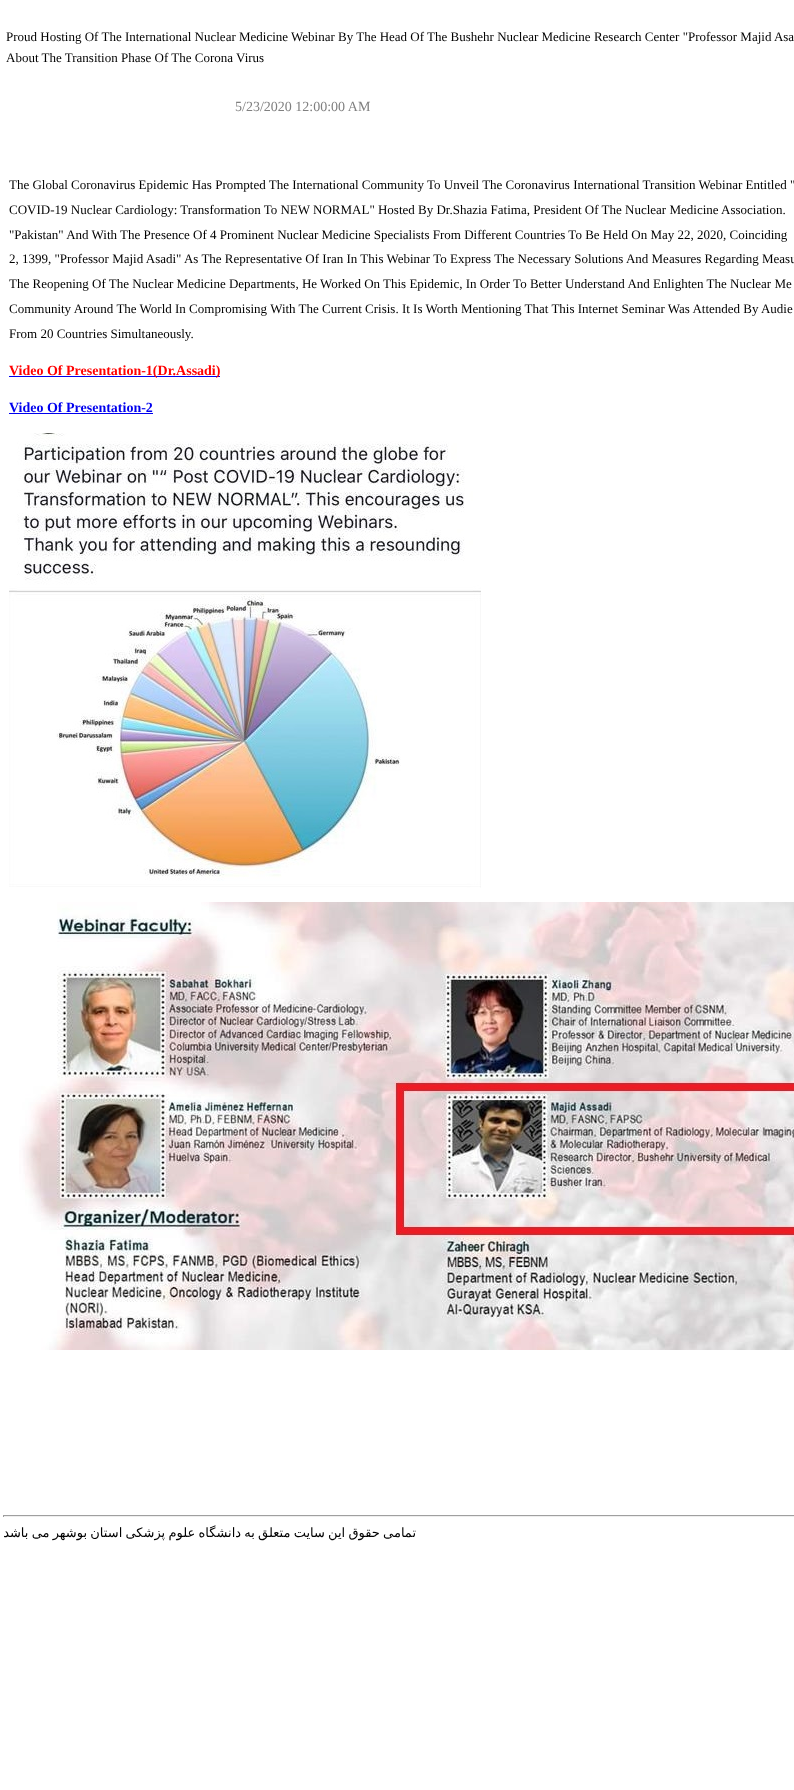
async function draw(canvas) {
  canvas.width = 794
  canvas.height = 1790
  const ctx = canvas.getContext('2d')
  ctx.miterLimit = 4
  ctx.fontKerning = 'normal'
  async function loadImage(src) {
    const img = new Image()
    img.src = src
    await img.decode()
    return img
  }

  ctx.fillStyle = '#fff'
  ctx.fillRect(0, 0, 794, 1790)
  ctx.font = '13px Liberation Serif'
  ctx.fillStyle = '#000'
  ctx.fillText('Proud Hosting Of The International Nuclear Medicine Webinar By The Head Of The Bushehr Nuclear Medicine Research Center "Professor Majid Asa', 6, 41)
  ctx.fillText('About The Transition Phase Of The Corona Virus', 6, 62)
  ctx.font = '14px Liberation Serif'
  ctx.fillStyle = '#808080'
  ctx.fillText('5/23/2020 12:00:00 AM', 235, 111)
  ctx.font = '13px Liberation Serif'
  ctx.fillStyle = '#000'
  ctx.fillText('The Global Coronavirus Epidemic Has Prompted The International Community To Unveil The Coronavirus International Transition Webinar Entitled "', 9, 189)
  ctx.fillText('COVID-19 Nuclear Cardiology: Transformation To NEW NORMAL" Hosted By Dr.Shazia Fatima, President Of The Nuclear Medicine Association.', 9, 214)
  ctx.fillText('"Pakistan" And With The Presence Of 4 Prominent Nuclear Medicine Specialists From Different Countries To Be Held On May 22, 2020, Coinciding', 9, 239)
  ctx.fillText('2, 1399, "Professor Majid Asadi" As The Representative Of Iran In This Webinar To Express The Necessary Solutions And Measures Regarding Measu', 9, 263)
  ctx.fillText('The Reopening Of The Nuclear Medicine Departments, He Worked On This Epidemic, In Order To Better Understand And Enlighten The Nuclear Me', 9, 288)
  ctx.fillText('Community Around The World In Compromising With The Current Crisis. It Is Worth Mentioning That This Internet Seminar Was Attended By Audie', 9, 313)
  ctx.fillText('From 20 Countries Simultaneously.', 9, 338)
  ctx.fillStyle = '#00e'
  ctx.fillRect(9, 376, 211, 1)
  ctx.font = 'bold 14px Liberation Serif'
  ctx.fillStyle = '#f00'
  ctx.fillText('Video Of Presentation-1(Dr.Assadi)', 9, 375)
  ctx.fillStyle = '#00e'
  ctx.fillText('Video Of Presentation-2', 9, 412)
  ctx.fillRect(9, 413, 144, 1)
  ctx.drawImage(await loadImage('image0.png'), 9, 433, 472, 455)
  ctx.drawImage(await loadImage('image1.png'), 19, 902, 775, 448)
  ctx.fillStyle = '#9f9f9f'
  ctx.fillRect(3, 1515, 791, 1)
  ctx.fillStyle = '#eee'
  ctx.fillRect(3, 1516, 791, 1)
  ctx.fillStyle = '#9f9f9f'
  ctx.fillRect(3, 1515, 1, 2)
  ctx.wordSpacing = '-0.9px'
  ctx.direction = 'rtl'
  ctx.font = '13px DejaVu Sans'
  ctx.fillStyle = '#000'
  ctx.fillText('تمامی حقوق این سايت متعلق به دانشگاه علوم پزشکی استان بوشهر می باشد', 416, 1537)
}

draw(document.querySelector('canvas'))
